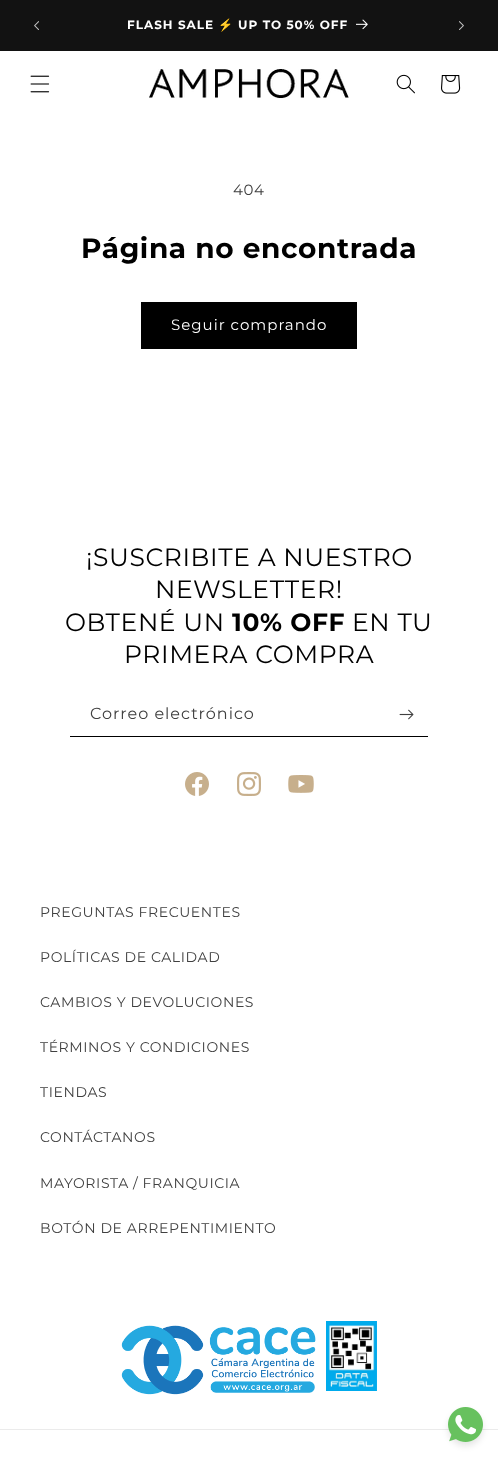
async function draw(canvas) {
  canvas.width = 498
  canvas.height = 1457
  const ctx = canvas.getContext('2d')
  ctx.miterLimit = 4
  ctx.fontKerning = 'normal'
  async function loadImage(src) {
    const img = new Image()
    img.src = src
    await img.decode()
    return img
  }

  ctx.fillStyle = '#fff'
  ctx.fillRect(0, 0, 498, 1457)
  ctx.fillStyle = '#121212'
  ctx.fillRect(0, 0, 498, 51)
  ctx.drawImage(await loadImage('image0.png'), 34, 21, 5, 9)
  ctx.letterSpacing = '1px'
  ctx.font = 'bold 12px Montserrat'
  ctx.fillStyle = '#fff'
  ctx.fillText('FLASH SALE', 127, 29)
  ctx.font = 'bold 12px Noto Color Emoji'
  ctx.fillText('⚡', 218, 29)
  ctx.font = 'bold 12px Montserrat'
  ctx.fillText('UP TO 50% OFF', 238, 29)
  ctx.drawImage(await loadImage('image1.png'), 356, 19, 12, 11)
  ctx.drawImage(await loadImage('image2.png'), 459, 21, 5, 9)
  ctx.drawImage(await loadImage('image3.png'), 30, 75, 20, 18)
  ctx.drawImage(await loadImage('image4.png'), 149, 69, 200, 30)
  ctx.drawImage(await loadImage('image5.png'), 396, 74, 19, 20)
  ctx.drawImage(await loadImage('image6.png'), 441, 75, 20, 19)
  ctx.letterSpacing = '0.6px'
  ctx.font = '15px Montserrat'
  ctx.fillStyle = '#404040'
  ctx.fillText('404', 233, 195)
  ctx.font = 'bold 28px Montserrat'
  ctx.fillStyle = '#000'
  ctx.fillText('Página no encontrada', 81, 258)
  ctx.fillRect(141, 302, 216, 47)
  ctx.letterSpacing = '1px'
  ctx.font = '15px Montserrat'
  ctx.fillStyle = '#fff'
  ctx.fillText('Seguir comprando', 171, 330)
  ctx.letterSpacing = '0.6px'
  ctx.font = '25px Montserrat'
  ctx.fillStyle = '#000'
  ctx.fillText('¡SUSCRIBITE A NUESTRO', 86, 566)
  ctx.fillText('NEWSLETTER!', 155, 598)
  ctx.fillText('OBTENÉ UN', 65, 631)
  ctx.font = 'bold 25px Montserrat'
  ctx.fillText('10% OFF', 232, 631)
  ctx.font = '25px Montserrat'
  ctx.fillText('EN TU', 352, 631)
  ctx.fillText('PRIMERA COMPRA', 124, 663)
  ctx.letterSpacing = '1px'
  ctx.font = '16px Montserrat'
  ctx.fillStyle = '#404040'
  ctx.fillText('Correo electrónico', 90, 719)
  ctx.drawImage(await loadImage('image7.png'), 399, 709, 15, 11)
  ctx.fillStyle = '#000'
  ctx.fillRect(70, 736, 358, 1)
  ctx.drawImage(await loadImage('image8.png'), 185, 772, 24, 24)
  ctx.drawImage(await loadImage('image9.png'), 237, 772, 24, 24)
  ctx.drawImage(await loadImage('image10.png'), 288, 775, 26, 18)
  ctx.letterSpacing = '0.6px'
  ctx.font = '14px Montserrat'
  ctx.fillStyle = '#404040'
  ctx.fillText('PREGUNTAS FRECUENTES', 40, 917)
  ctx.fillText('POLÍTICAS DE CALIDAD', 40, 962)
  ctx.fillText('CAMBIOS Y DEVOLUCIONES', 40, 1007)
  ctx.fillText('TÉRMINOS Y CONDICIONES', 40, 1052)
  ctx.fillText('TIENDAS', 40, 1097)
  ctx.fillText('CONTÁCTANOS', 40, 1142)
  ctx.fillText('MAYORISTA / FRANQUICIA', 40, 1188)
  ctx.fillText('BOTÓN DE ARREPENTIMIENTO', 40, 1233)
  ctx.drawImage(await loadImage('image11.png'), 121, 1325, 195, 70)
  ctx.drawImage(await loadImage('image12.png'), 326, 1321, 51, 70)
  ctx.fillStyle = '#ebebeb'
  ctx.fillRect(0, 1429, 498, 1)
  ctx.fillStyle = '#0000001a'
  ctx.filter = 'blur(3px)'
  ctx.beginPath()
  ctx.roundRect(448, 1411, 35, 35, 17.5)
  ctx.fill()
  ctx.filter = 'none'
  ctx.fillStyle = '#fff'
  ctx.beginPath()
  ctx.arc(465.5, 1424.5, 17.5, 0, 2 * Math.PI)
  ctx.fill()
  ctx.drawImage(await loadImage('image13.png'), 448, 1407, 35, 35)
}

draw(document.querySelector('canvas'))
